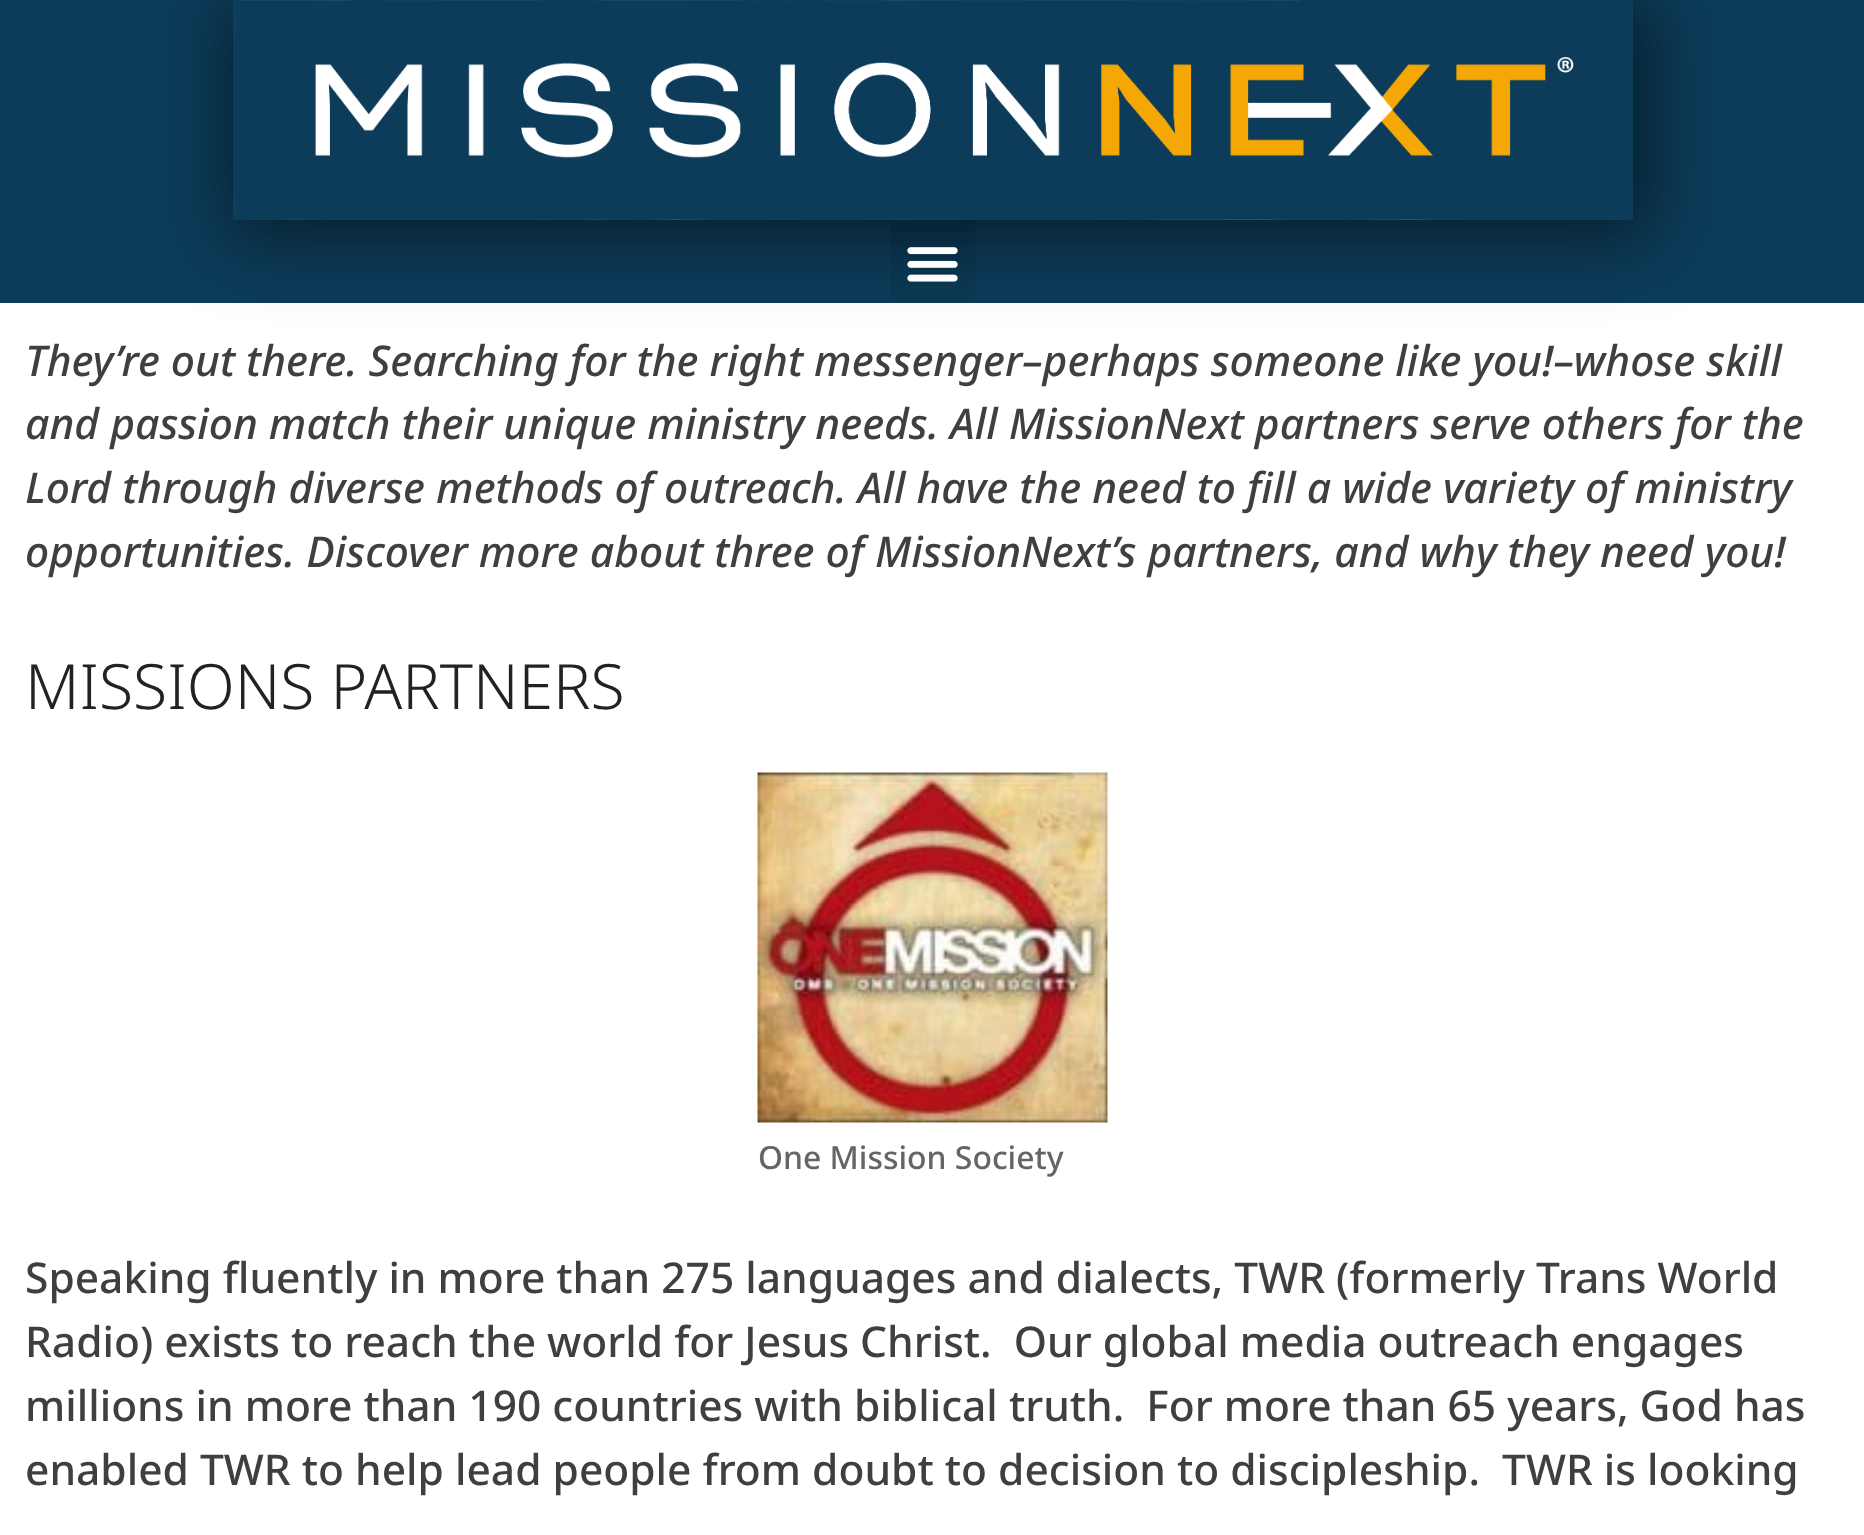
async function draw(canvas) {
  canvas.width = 1864
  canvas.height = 1535
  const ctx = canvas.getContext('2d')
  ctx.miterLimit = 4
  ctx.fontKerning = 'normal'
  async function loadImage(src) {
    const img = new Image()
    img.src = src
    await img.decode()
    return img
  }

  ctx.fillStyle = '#0d3d5b'
  ctx.fillRect(0, 0, 1864, 1535)
  ctx.fillStyle = '#fff'
  ctx.fillRect(0, 303, 1864, 1232)
  ctx.save()
  ctx.beginPath()
  ctx.moveTo(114, 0)
  ctx.lineTo(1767, 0)
  ctx.lineTo(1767, 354)
  ctx.lineTo(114, 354)
  ctx.closePath()
  ctx.moveTo(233, 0)
  ctx.lineTo(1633, 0)
  ctx.lineTo(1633, 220)
  ctx.lineTo(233, 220)
  ctx.closePath()
  ctx.clip('evenodd')
  ctx.fillStyle = '#00000080'
  ctx.filter = 'blur(37.5px)'
  ctx.beginPath()
  ctx.rect(228, -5, 1425, 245)
  ctx.fill()
  ctx.filter = 'none'
  ctx.restore()
  ctx.drawImage(await loadImage('image0.png'), 239, 0, 1335, 220)
  ctx.fillStyle = '#0000000d'
  ctx.fillRect(890, 220, 85, 83)
  ctx.drawImage(await loadImage('image1.png'), 907, 247, 51, 35)
  ctx.font = 'italic 500 42.5px Noto Sans'
  ctx.fillStyle = '#3f3f3f'
  ctx.fillText('They’re out there. Searching for the right messenger–perhaps someone like you!–whose skill', 25, 376)
  ctx.fillText('and passion match their unique ministry needs. All MissionNext partners serve others for the', 25, 439)
  ctx.fillText('Lord through diverse methods of outreach. All have the need to fill a wide variety of ministry', 25, 503)
  ctx.fillText('opportunities. Discover more about three of MissionNext’s partners, and why they need you!', 25, 567)
  ctx.font = '300 62.5px Noto Sans'
  ctx.fillStyle = '#222'
  ctx.fillText('MISSIONS PARTNERS', 25, 709)
  ctx.drawImage(await loadImage('image2.png'), 757, 772, 351, 351)
  ctx.font = '500 31.9px Noto Sans'
  ctx.fillStyle = '#656565'
  ctx.fillText('One Mission Society', 758, 1169)
  ctx.font = '500 42.5px Noto Sans'
  ctx.fillStyle = '#3f3f3f'
  ctx.fillText('Speaking fluently in more than 275 languages and dialects, TWR (formerly Trans World', 25, 1293)
  ctx.fillText('Radio) exists to reach the world for Jesus Christ.  Our global media outreach engages', 25, 1357)
  ctx.fillText('millions in more than 190 countries with biblical truth.  For more than 65 years, God has', 25, 1421)
  ctx.fillText('enabled TWR to help lead people from doubt to decision to discipleship.  TWR is looking', 25, 1485)
}

draw(document.querySelector('canvas'))
